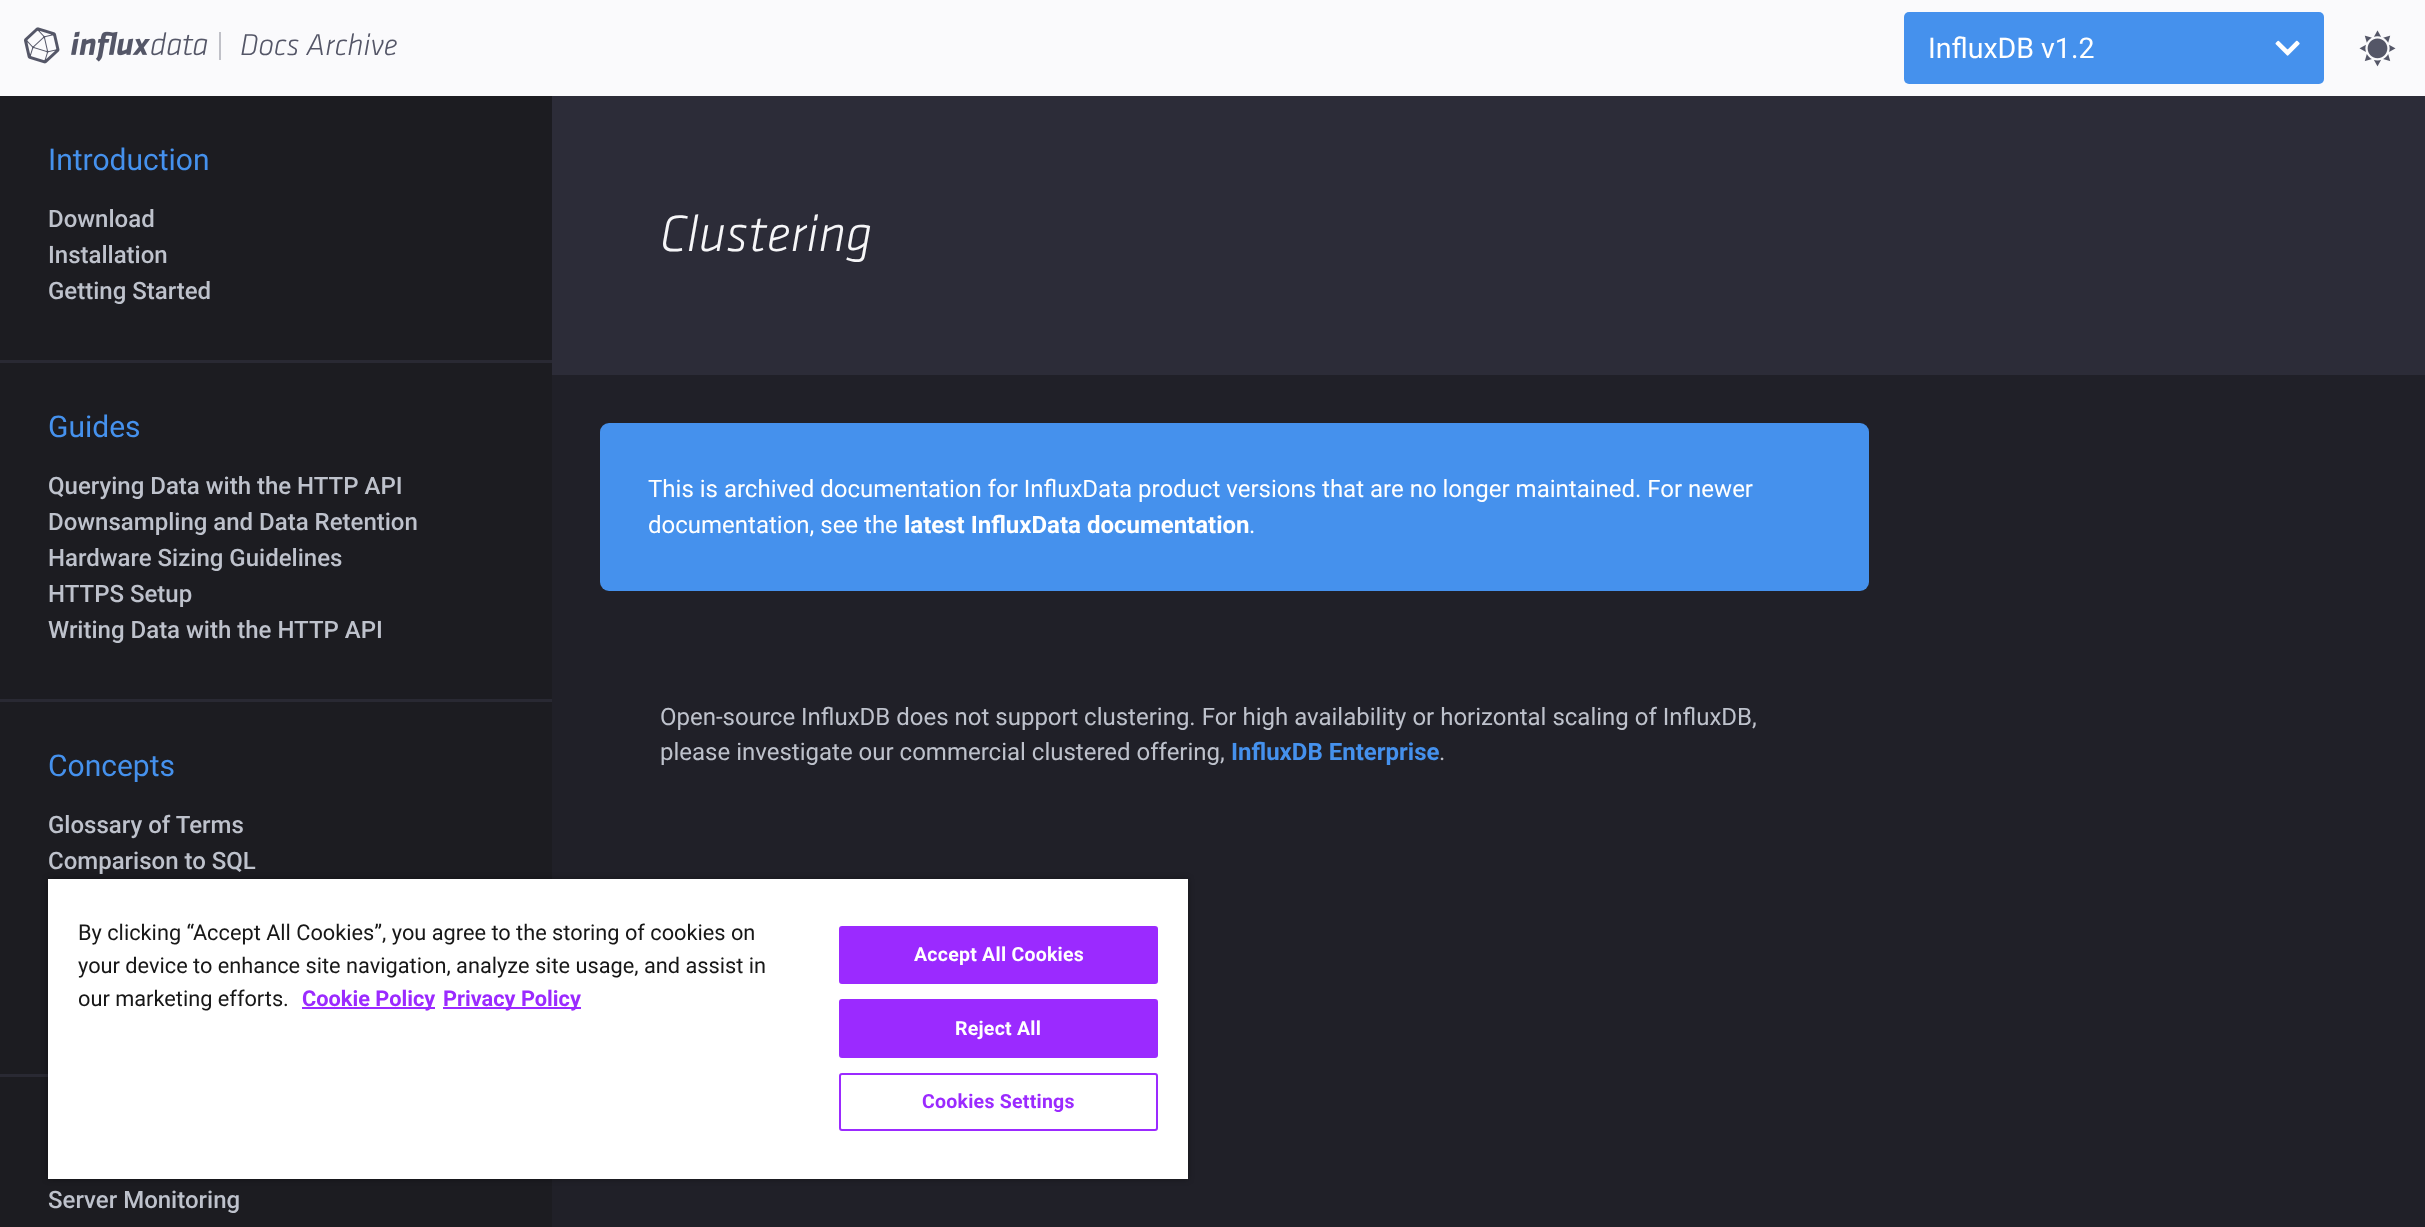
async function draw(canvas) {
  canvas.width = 2425
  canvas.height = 1227
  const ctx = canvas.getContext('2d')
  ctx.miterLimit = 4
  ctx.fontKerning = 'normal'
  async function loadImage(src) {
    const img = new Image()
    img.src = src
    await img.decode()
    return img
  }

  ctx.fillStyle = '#202028'
  ctx.fillRect(0, 0, 2425, 1227)
  ctx.fillStyle = '#fafafc'
  ctx.fillRect(0, 0, 2425, 96)
  ctx.drawImage(await loadImage('image0.png'), 24, 27, 184, 37)
  ctx.fillStyle = '#c0c1c8'
  ctx.fillRect(219, 32, 2, 28)
  ctx.font = 'italic 300 31.25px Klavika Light'
  ctx.fillStyle = '#545667'
  ctx.fillText('Docs Archive', 240, 55)
  ctx.fillStyle = '#4591ed'
  ctx.beginPath()
  ctx.roundRect(1904, 12, 420, 72, 5)
  ctx.fill()
  ctx.font = '28.5px Roboto'
  ctx.fillStyle = '#fff'
  ctx.fillText('InfluxDB v1.2', 1928, 58)
  ctx.drawImage(await loadImage('image1.png'), 2275, 40, 25, 16)
  ctx.drawImage(await loadImage('image2.png'), 2359, 30, 37, 37)
  ctx.fillStyle = '#1c1c21'
  ctx.fillRect(0, 96, 552, 1131)
  ctx.font = '30px Roboto'
  ctx.fillStyle = '#4591ed'
  ctx.fillText('Introduction', 48, 170)
  ctx.font = '500 24px Roboto'
  ctx.fillStyle = '#bec2cc'
  ctx.fillText('Download', 48, 227)
  ctx.fillText('Installation', 48, 263)
  ctx.fillText('Getting Started', 48, 299)
  ctx.fillStyle = '#292933'
  ctx.fillRect(0, 360, 552, 3)
  ctx.font = '30px Roboto'
  ctx.fillStyle = '#4591ed'
  ctx.fillText('Guides', 48, 437)
  ctx.font = '500 24px Roboto'
  ctx.fillStyle = '#bec2cc'
  ctx.fillText('Querying Data with the HTTP API', 48, 494)
  ctx.fillText('Downsampling and Data Retention', 48, 530)
  ctx.fillText('Hardware Sizing Guidelines', 48, 566)
  ctx.fillText('HTTPS Setup', 48, 602)
  ctx.fillText('Writing Data with the HTTP API', 48, 638)
  ctx.fillStyle = '#292933'
  ctx.fillRect(0, 699, 552, 3)
  ctx.font = '30px Roboto'
  ctx.fillStyle = '#4591ed'
  ctx.fillText('Concepts', 48, 776)
  ctx.font = '500 24px Roboto'
  ctx.fillStyle = '#bec2cc'
  ctx.fillText('Glossary of Terms', 48, 833)
  ctx.fillText('Comparison to SQL', 48, 869)
  ctx.fillStyle = '#292933'
  ctx.fillRect(0, 1074, 48, 3)
  ctx.fillStyle = '#bec2cc'
  ctx.fillText('Server Monitoring', 48, 1208)
  ctx.fillStyle = '#2c2c38'
  ctx.fillRect(552, 96, 1873, 279)
  ctx.font = 'italic 300 53px Klavika Light'
  ctx.fillStyle = '#f6f6f8'
  ctx.fillText('Clustering', 660, 251)
  ctx.fillStyle = '#4591ed'
  ctx.beginPath()
  ctx.roundRect(600, 423, 1269, 168, 9)
  ctx.fill()
  ctx.font = '24px Roboto'
  ctx.fillStyle = '#fff'
  ctx.fillText('This is archived documentation for InfluxData product versions that are no longer maintained. For newer', 648, 497)
  ctx.fillText('documentation, see the', 648, 533)
  ctx.font = 'bold 24px Roboto'
  ctx.fillText('latest InfluxData documentation', 904, 533)
  ctx.font = '24px Roboto'
  ctx.fillText('.', 1249, 533)
  ctx.fillStyle = '#bec2cc'
  ctx.fillText('Open-source InfluxDB does not support clustering. For high availability or horizontal scaling of InfluxDB,', 660, 725)
  ctx.fillText('please investigate our commercial clustered offering,', 660, 760)
  ctx.font = 'bold 24px Roboto'
  ctx.fillStyle = '#4591ed'
  ctx.fillText('InfluxDB Enterprise', 1231, 760)
  ctx.font = '24px Roboto'
  ctx.fillStyle = '#bec2cc'
  ctx.fillText('.', 1439, 760)
  ctx.fillStyle = '#00000059'
  ctx.filter = 'blur(3px)'
  ctx.beginPath()
  ctx.rect(48, 879, 1140, 300)
  ctx.fill()
  ctx.filter = 'none'
  ctx.fillStyle = '#fff'
  ctx.fillRect(48, 879, 1140, 300)
  ctx.font = '21.75px Roboto'
  ctx.fillStyle = '#171717'
  ctx.fillText('By clicking “Accept All Cookies”, you agree to the storing of cookies on', 78, 940)
  ctx.fillText('your device to enhance site navigation, analyze site usage, and assist in', 78, 973)
  ctx.fillText('our marketing efforts.', 78, 1006)
  ctx.fillStyle = '#9b2aff'
  ctx.fillRect(302, 1007, 133, 2)
  ctx.font = 'bold 21.75px Roboto'
  ctx.fillText('Cookie Policy', 302, 1006)
  ctx.fillRect(443, 1007, 138, 2)
  ctx.fillText('Privacy Policy', 443, 1006)
  ctx.beginPath()
  ctx.roundRect(840, 927, 317, 56, 2)
  ctx.fill()
  ctx.strokeStyle = '#9b2aff'
  ctx.lineWidth = 2
  ctx.stroke()
  ctx.letterSpacing = '0.25px'
  ctx.font = 'bold 19.5px Roboto'
  ctx.fillStyle = '#fff'
  ctx.fillText('Accept All Cookies', 914, 961)
  ctx.fillStyle = '#9b2aff'
  ctx.beginPath()
  ctx.roundRect(840, 1000, 317, 57, 2)
  ctx.fill()
  ctx.stroke()
  ctx.fillStyle = '#fff'
  ctx.fillText('Reject All', 955, 1035)
  ctx.beginPath()
  ctx.roundRect(840, 1074, 317, 56, 2)
  ctx.stroke()
  ctx.fillStyle = '#9b2aff'
  ctx.fillText('Cookies Settings', 922, 1108)
}

draw(document.querySelector('canvas'))
